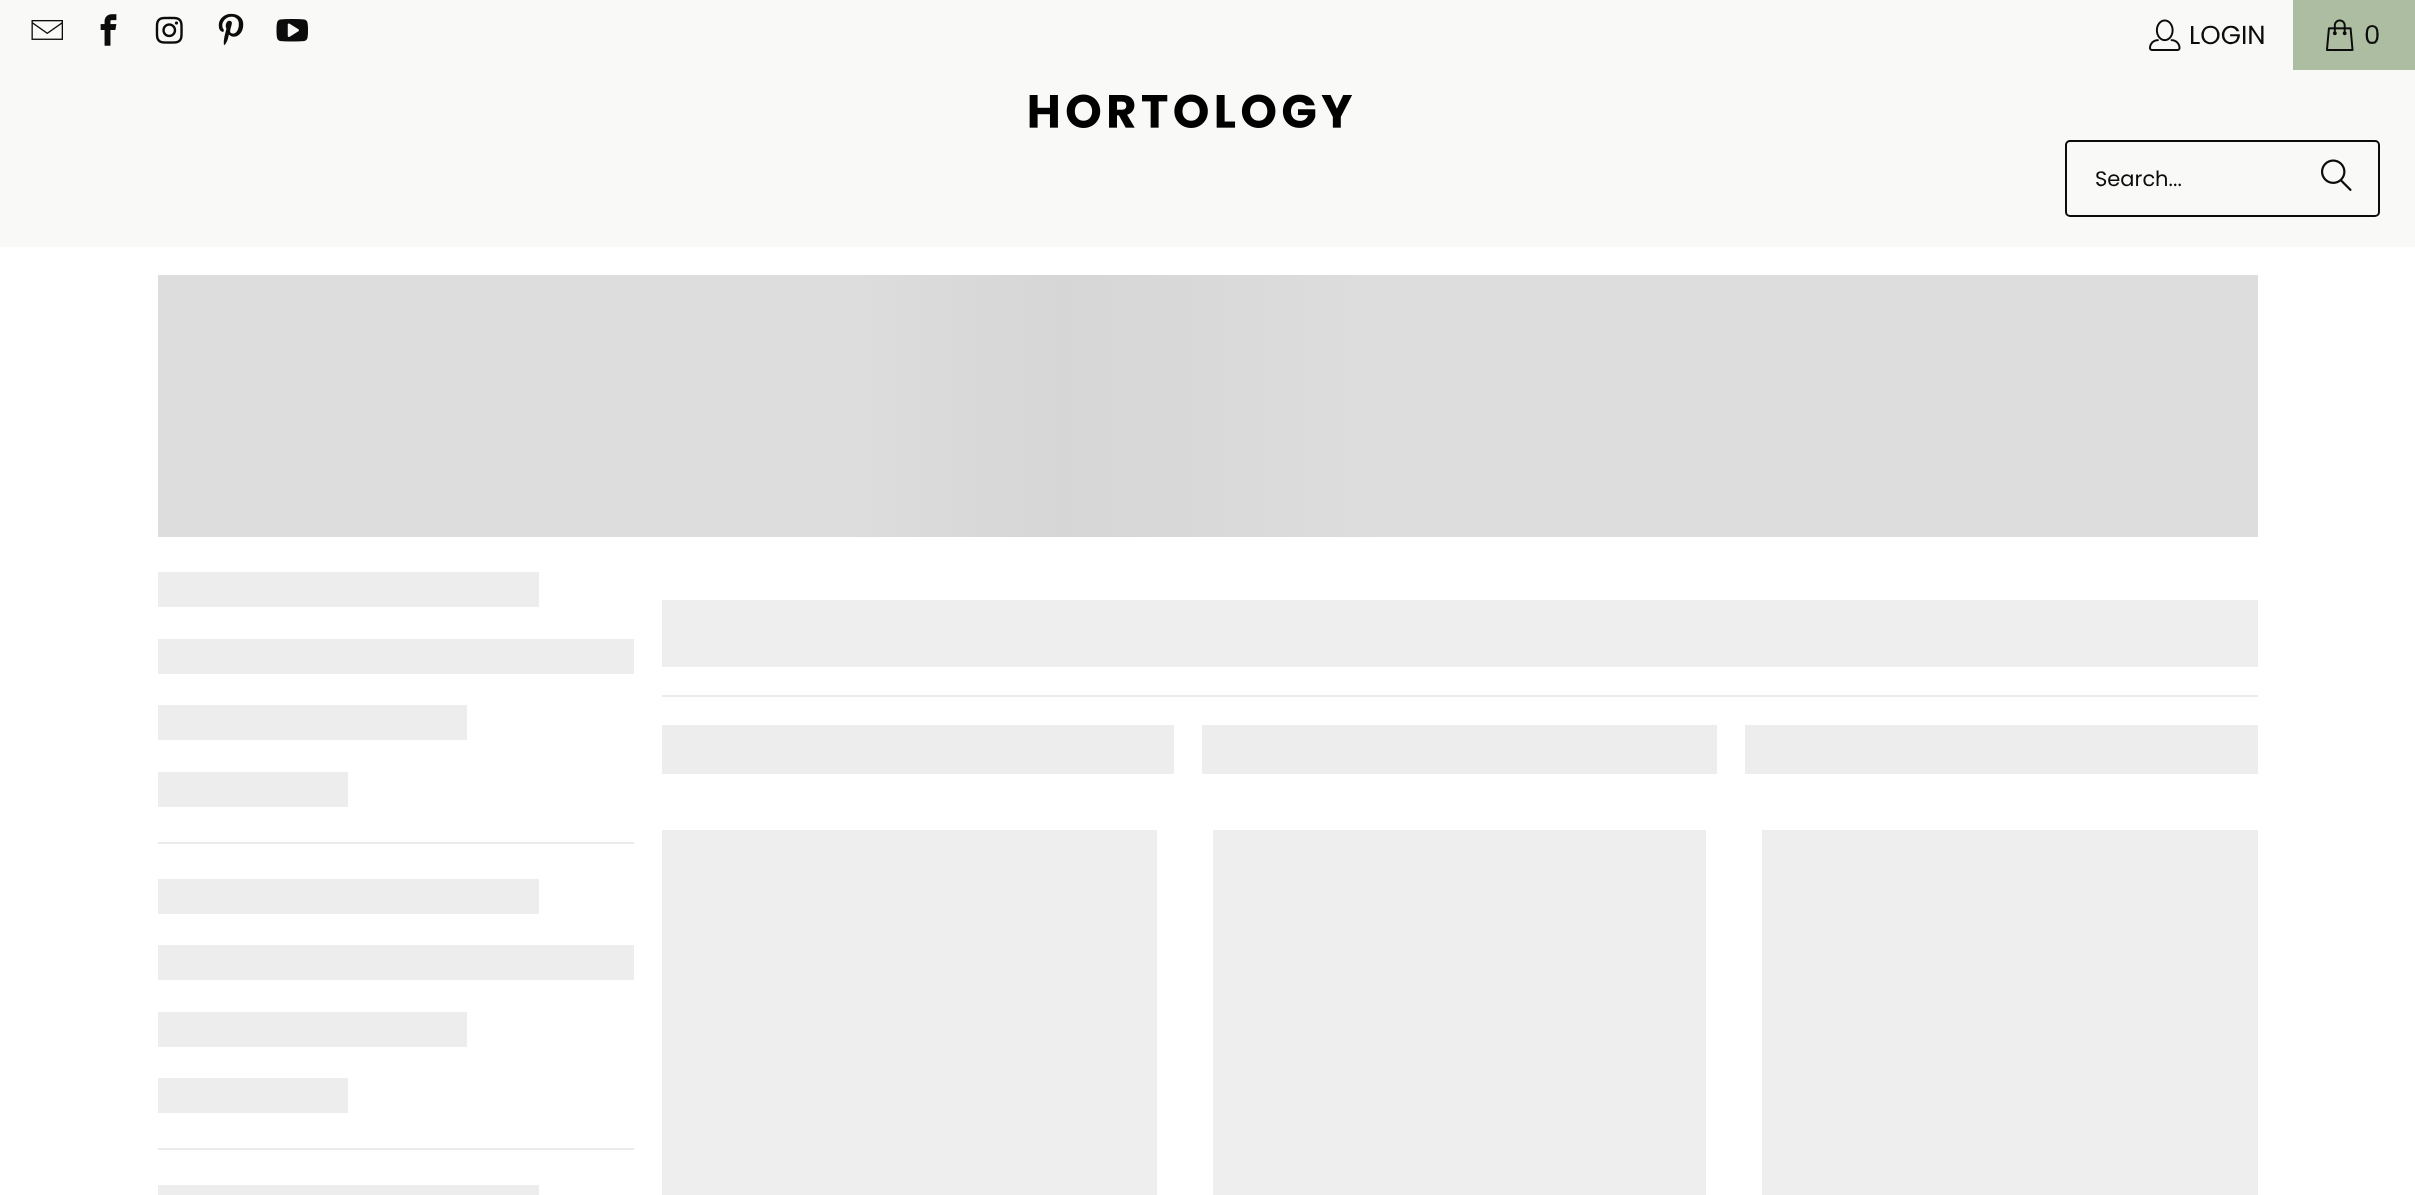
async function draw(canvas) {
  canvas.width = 2415
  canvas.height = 1195
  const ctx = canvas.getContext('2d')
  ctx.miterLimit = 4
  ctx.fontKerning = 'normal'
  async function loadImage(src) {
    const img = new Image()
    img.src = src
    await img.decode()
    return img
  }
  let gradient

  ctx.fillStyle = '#fff'
  ctx.fillRect(0, 0, 2415, 1195)
  ctx.fillStyle = '#f9faf7'
  ctx.fillRect(0, 0, 2293, 70)
  ctx.drawImage(await loadImage('image0.png'), 31, 20, 32, 20)
  ctx.drawImage(await loadImage('image1.png'), 100, 14, 17, 32)
  ctx.drawImage(await loadImage('image2.png'), 155, 16, 28, 28)
  ctx.drawImage(await loadImage('image3.png'), 218, 13, 26, 33)
  ctx.drawImage(await loadImage('image4.png'), 276, 19, 32, 23)
  ctx.drawImage(await loadImage('image5.png'), 2149, 19, 32, 32)
  ctx.font = '26px Poppins'
  ctx.fillStyle = '#0c0c0c'
  ctx.fillText('LOGIN', 2189, 44)
  ctx.fillStyle = '#acbda1'
  ctx.fillRect(2293, 0, 122, 70)
  ctx.drawImage(await loadImage('image6.png'), 2326, 19, 28, 32)
  ctx.fillStyle = '#0c0c0c'
  ctx.fillText('0', 2364, 44)
  ctx.fillStyle = '#f9faf7'
  ctx.fillRect(0, 70, 2415, 177)
  ctx.drawImage(await loadImage('image7.png'), 1029, 94, 323, 34)
  ctx.beginPath()
  ctx.roundRect(2066, 141, 313, 75, 4)
  ctx.strokeStyle = '#0c0c0c'
  ctx.lineWidth = 2
  ctx.stroke()
  ctx.font = '21px Poppins'
  ctx.fillStyle = '#0c0c0c'
  ctx.fillText('Search...', 2095, 186)
  ctx.drawImage(await loadImage('image8.png'), 2321, 159, 31, 32)
  ctx.fillStyle = '#ddd'
  ctx.fillRect(158, 275, 525, 262)
  gradient = ctx.createLinearGradient(683, 275, 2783, 275)
  gradient.addColorStop(0.08, '#ddd')
  gradient.addColorStop(0.18, '#d6d6d6')
  gradient.addColorStop(0.33, '#ddd')
  ctx.fillStyle = gradient
  ctx.fillRect(683, 275, 1575, 262)
  ctx.fillStyle = '#ebebeb'
  ctx.fillRect(158, 842, 476, 2)
  ctx.fillStyle = '#ededed'
  ctx.fillRect(158, 572, 381, 35)
  ctx.fillRect(158, 639, 476, 35)
  ctx.fillRect(158, 705, 309, 35)
  ctx.fillRect(158, 772, 190, 35)
  ctx.fillStyle = '#ebebeb'
  ctx.fillRect(158, 1148, 476, 2)
  ctx.fillStyle = '#ededed'
  ctx.fillRect(158, 879, 381, 35)
  ctx.fillRect(158, 945, 476, 35)
  ctx.fillRect(158, 1012, 309, 35)
  ctx.fillRect(158, 1078, 190, 35)
  ctx.fillRect(158, 1185, 381, 10)
  ctx.fillStyle = '#eee'
  ctx.fillRect(662, 600, 1596, 67)
  ctx.fillStyle = '#ebebeb'
  ctx.fillRect(662, 695, 1596, 2)
  ctx.fillStyle = '#ededed'
  ctx.fillRect(662, 725, 512, 49)
  ctx.fillRect(1202, 725, 515, 49)
  ctx.fillRect(1745, 725, 513, 49)
  ctx.fillStyle = '#eee'
  ctx.fillRect(662, 830, 495, 365)
  ctx.fillRect(1213, 830, 493, 365)
  ctx.fillRect(1762, 830, 496, 365)
}

draw(document.querySelector('canvas'))
